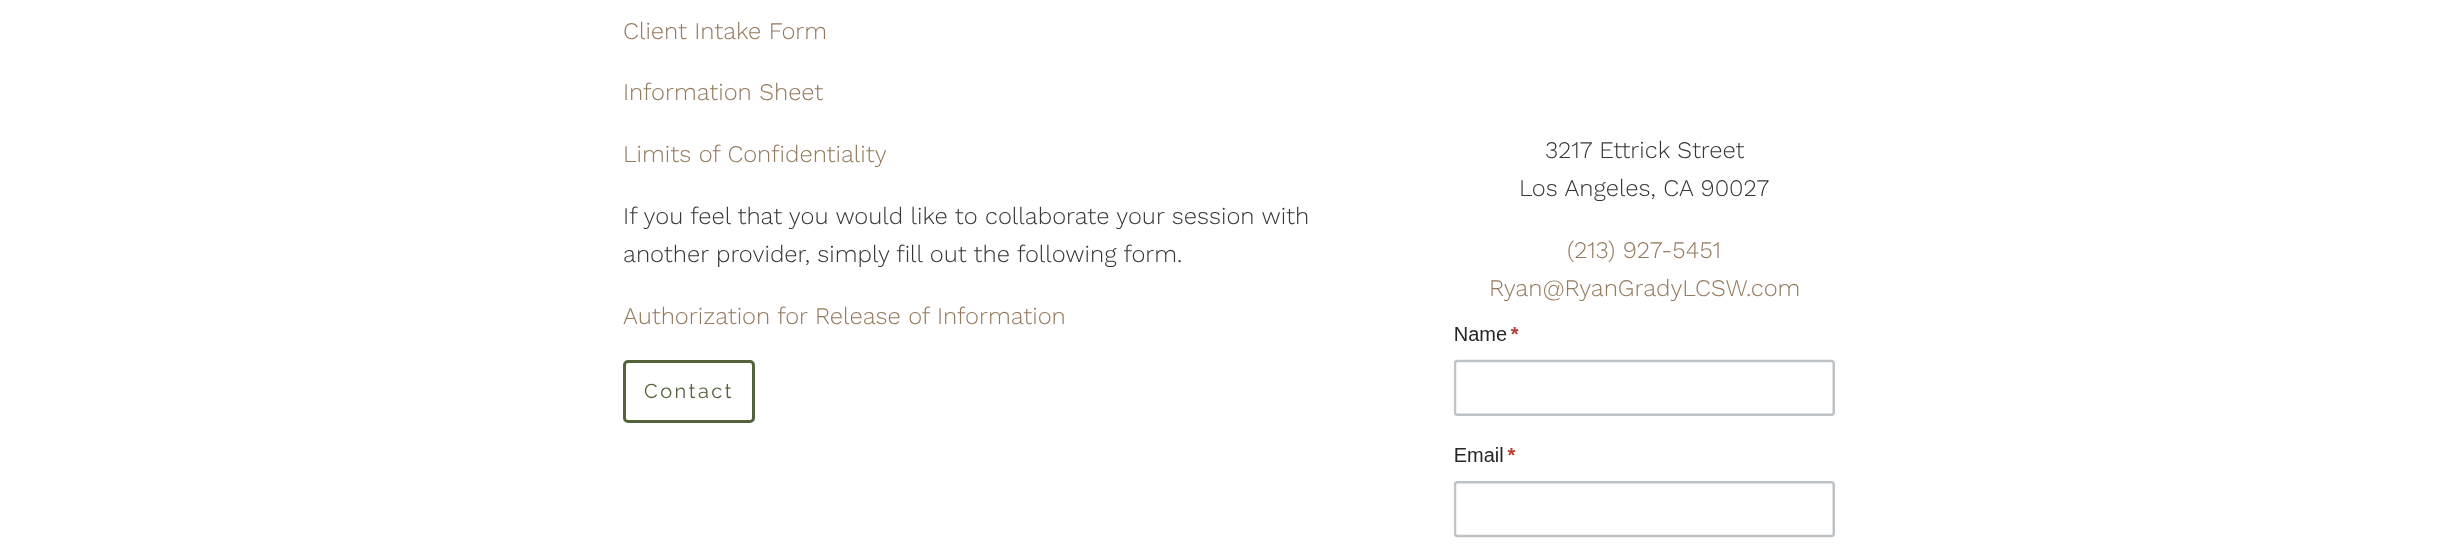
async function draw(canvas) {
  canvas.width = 2457
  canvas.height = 545
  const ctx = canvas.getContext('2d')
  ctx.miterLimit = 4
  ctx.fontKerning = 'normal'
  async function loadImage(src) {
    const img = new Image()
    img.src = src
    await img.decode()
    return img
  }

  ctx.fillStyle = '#fff'
  ctx.fillRect(0, 0, 2457, 545)
  ctx.font = '300 23.75px Work Sans'
  ctx.fillStyle = '#947a5c'
  ctx.fillText('Client Intake Form', 623, 39)
  ctx.fillText('Information Sheet', 623, 100)
  ctx.fillText('Limits of Confidentiality', 623, 162)
  ctx.fillStyle = '#363636'
  ctx.fillText('If you feel that you would like to collaborate your session with', 623, 224)
  ctx.fillText('another provider, simply fill out the following form.', 623, 262)
  ctx.fillStyle = '#947a5c'
  ctx.fillText('Authorization for Release of Information', 623, 324)
  ctx.beginPath()
  ctx.roundRect(624.5, 361.5, 129, 60, 3.5)
  ctx.strokeStyle = '#54643a'
  ctx.lineWidth = 3
  ctx.stroke()
  ctx.letterSpacing = '2.5px'
  ctx.font = '20px Raleway'
  ctx.fillStyle = '#54643a'
  ctx.fillText('Contact', 644, 398)
  ctx.letterSpacing = '0px'
  ctx.font = '300 23.75px Work Sans'
  ctx.fillStyle = '#363636'
  ctx.fillText('3217 Ettrick Street', 1545, 158)
  ctx.fillText('Los Angeles, CA 90027', 1519, 196)
  ctx.fillStyle = '#947a5c'
  ctx.fillText('(213) 927-5451', 1567, 258)
  ctx.fillText('Ryan@RyanGradyLCSW.com', 1489, 296)
  ctx.drawImage(await loadImage('image0.png'), 1453, 327, 382, 211)
}

draw(document.querySelector('canvas'))
